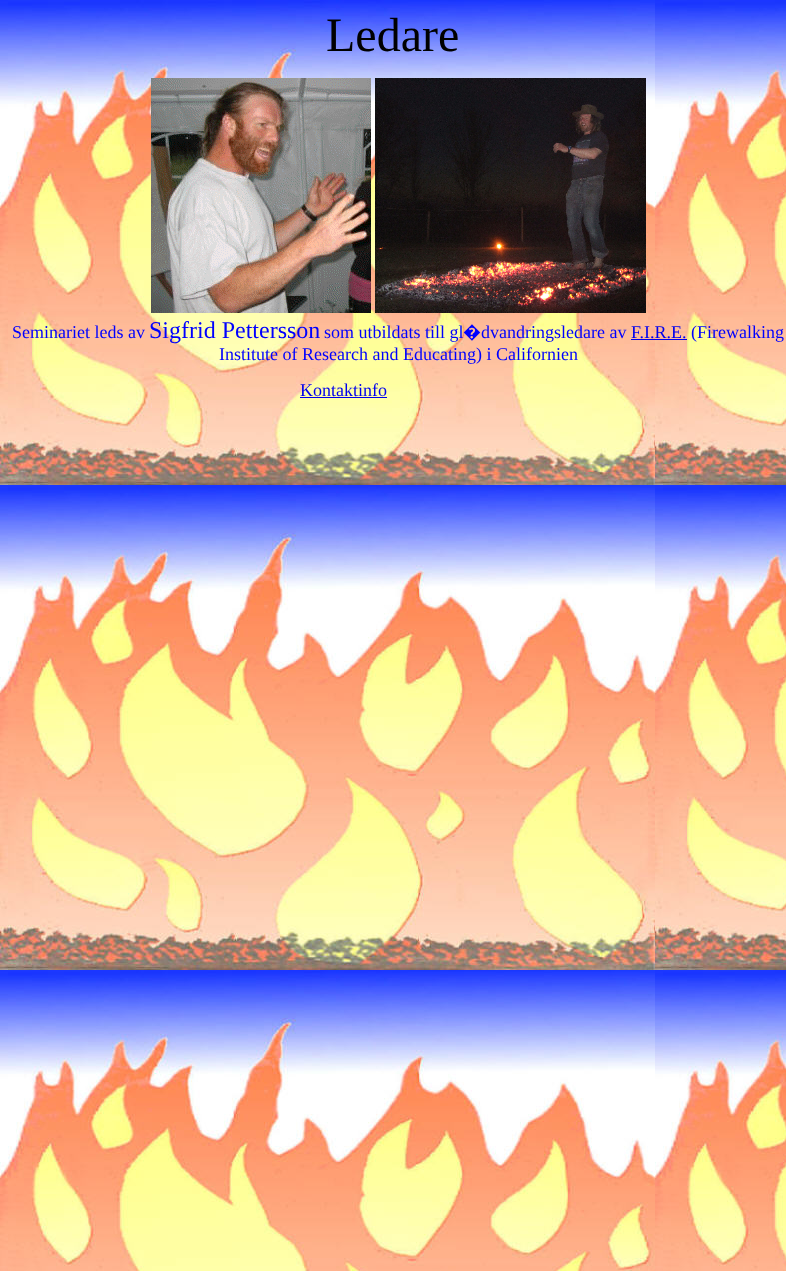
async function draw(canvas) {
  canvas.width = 786
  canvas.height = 1271
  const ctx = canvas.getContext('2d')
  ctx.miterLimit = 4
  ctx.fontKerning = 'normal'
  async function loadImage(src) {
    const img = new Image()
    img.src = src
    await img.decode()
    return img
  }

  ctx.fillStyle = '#fff'
  ctx.fillRect(0, 0, 786, 1271)
  ctx.drawImage(await loadImage('image0.png'), 0, 0, 786, 1271)
  ctx.font = '48px Liberation Serif'
  ctx.fillStyle = '#000'
  ctx.fillText('Ledare', 326, 51)
  ctx.drawImage(await loadImage('image1.png'), 151, 78, 220, 235)
  ctx.drawImage(await loadImage('image2.png'), 375, 78, 271, 235)
  ctx.font = '18px Liberation Serif'
  ctx.fillStyle = '#00f'
  ctx.fillText('Seminariet leds av', 12, 338)
  ctx.font = '24px Liberation Serif'
  ctx.fillText('Sigfrid Pettersson', 149, 338)
  ctx.font = '18px Liberation Serif'
  ctx.fillText('som utbildats till gl', 324, 338)
  ctx.font = '18px Noto Sans'
  ctx.fillText('�', 463, 338)
  ctx.font = '18px Liberation Serif'
  ctx.fillText('dvandringsledare av', 481, 338)
  ctx.fillStyle = '#00e'
  ctx.fillText('F.I.R.E.', 631, 338)
  ctx.fillRect(631, 339, 56, 1)
  ctx.fillStyle = '#00f'
  ctx.fillText('(Firewalking', 691, 338)
  ctx.fillText('Institute of Research and Educating) i Californien', 219, 360)
  ctx.fillStyle = '#00e'
  ctx.fillText('Kontaktinfo', 300, 396)
  ctx.fillRect(300, 397, 87, 1)
}

draw(document.querySelector('canvas'))
